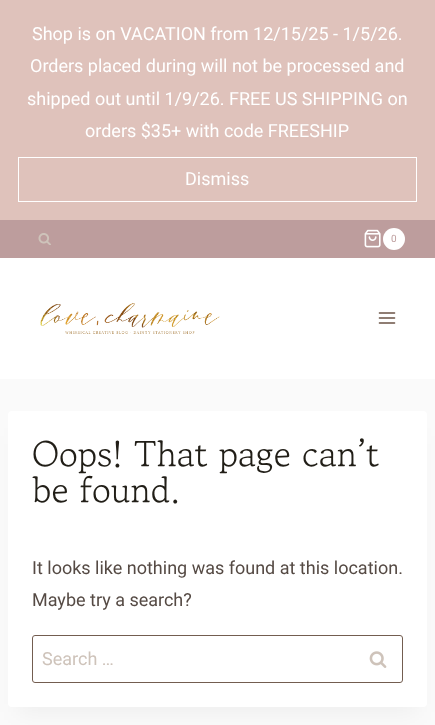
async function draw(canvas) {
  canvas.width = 435
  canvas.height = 725
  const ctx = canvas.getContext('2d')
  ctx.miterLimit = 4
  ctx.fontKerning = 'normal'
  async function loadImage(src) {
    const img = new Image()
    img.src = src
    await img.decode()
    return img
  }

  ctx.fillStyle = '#fafafa'
  ctx.fillRect(0, 0, 435, 725)
  ctx.fillStyle = '#dfc2bb'
  ctx.fillRect(0, 0, 435, 220)
  ctx.font = '18px Roboto'
  ctx.fillStyle = '#fff'
  ctx.fillText('Shop is on VACATION from 12/15/25 - 1/5/26.', 32, 40)
  ctx.fillText('Orders placed during will not be processed and', 30, 72)
  ctx.fillText('shipped out until 1/9/26. FREE US SHIPPING on', 27, 105)
  ctx.fillText('orders $35+ with code FREESHIP', 85, 137)
  ctx.strokeStyle = '#fff'
  ctx.strokeRect(18.5, 157.5, 398, 44)
  ctx.fillText('Dismiss', 185, 185)
  ctx.fillRect(0, 258, 435, 121)
  ctx.fillStyle = '#bd9d9d'
  ctx.fillRect(0, 220, 435, 38)
  ctx.drawImage(await loadImage('image0.png'), 38, 233, 13, 12)
  ctx.drawImage(await loadImage('image1.png'), 364, 229, 17, 19)
  ctx.fillStyle = '#fff'
  ctx.beginPath()
  ctx.arc(394, 239, 11, 0, 2 * Math.PI)
  ctx.fill()
  ctx.font = '10px Roboto'
  ctx.fillStyle = '#bd9d9d'
  ctx.fillText('0', 391, 242)
  ctx.drawImage(await loadImage('image2.png'), 40, 303, 180, 31)
  ctx.drawImage(await loadImage('image3.png'), 378, 312, 18, 12)
  ctx.fillStyle = '#0000000d'
  ctx.filter = 'blur(12.5px)'
  ctx.beginPath()
  ctx.rect(18, 436, 399, 276)
  ctx.fill()
  ctx.filter = 'none'
  ctx.fillStyle = '#fff'
  ctx.beginPath()
  ctx.roundRect(8, 411, 419, 296, 4)
  ctx.fill()
  ctx.font = '36px Gowun Batang'
  ctx.fillStyle = '#211e17'
  ctx.fillText('Oops! That page can’t', 32, 469)
  ctx.fillText('be found.', 32, 505)
  ctx.font = '18px Roboto'
  ctx.fillStyle = '#554a44'
  ctx.fillText('It looks like nothing was found at this location.', 32, 574)
  ctx.fillText('Maybe try a search?', 32, 606)
  ctx.beginPath()
  ctx.roundRect(32.5, 635.5, 370, 47, 2.5)
  ctx.strokeStyle = '#735d50'
  ctx.stroke()
  ctx.fillStyle = '#cec3ba'
  ctx.fillText('Search …', 42, 665)
  ctx.drawImage(await loadImage('image4.png'), 369, 651, 18, 17)
}

draw(document.querySelector('canvas'))
